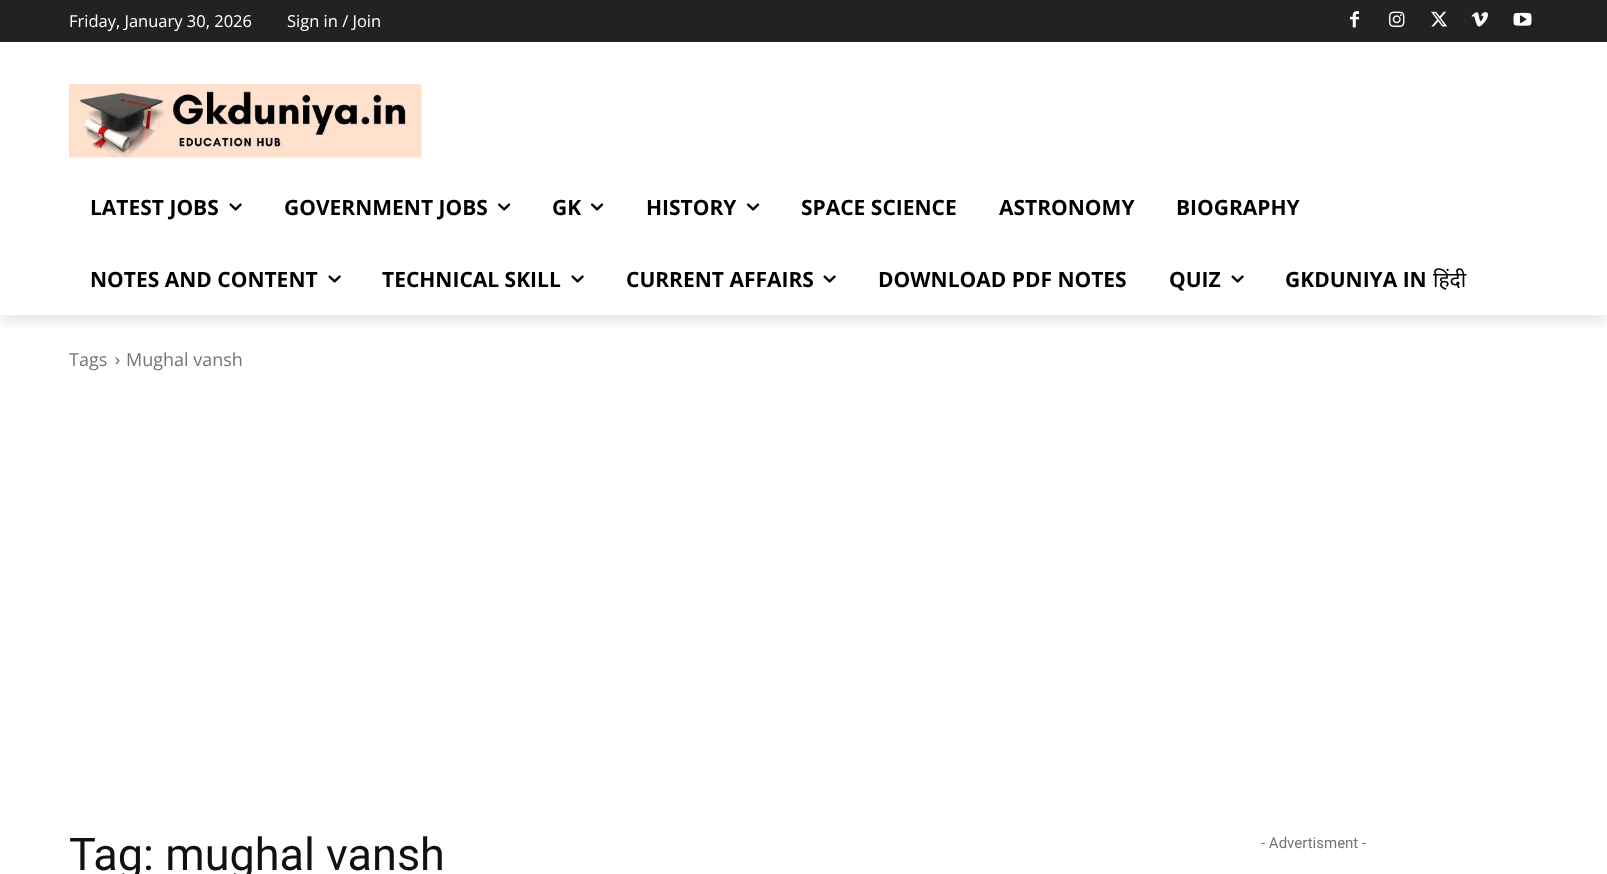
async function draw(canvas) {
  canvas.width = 1607
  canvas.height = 874
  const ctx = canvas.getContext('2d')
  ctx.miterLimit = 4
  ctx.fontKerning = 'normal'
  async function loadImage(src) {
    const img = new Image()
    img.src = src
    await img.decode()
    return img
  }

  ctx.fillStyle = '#fff'
  ctx.fillRect(0, 0, 1607, 874)
  ctx.fillStyle = '#222'
  ctx.fillRect(0, 0, 1607, 42)
  ctx.drawImage(await loadImage('image0.png'), 1350, 11, 9, 17)
  ctx.drawImage(await loadImage('image1.png'), 1389, 11, 16, 16)
  ctx.drawImage(await loadImage('image2.png'), 1431, 11, 16, 16)
  ctx.drawImage(await loadImage('image3.png'), 1471, 12, 17, 15)
  ctx.drawImage(await loadImage('image4.png'), 1513, 12, 19, 14)
  ctx.drawImage(await loadImage('image5.png'), 69, 84, 353, 74)
  ctx.save()
  ctx.beginPath()
  ctx.rect(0, 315, 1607, 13)
  ctx.clip()
  ctx.fillStyle = '#00000014'
  ctx.filter = 'blur(6px)'
  ctx.beginPath()
  ctx.rect(0, 9, 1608, 315)
  ctx.fill()
  ctx.filter = 'none'
  ctx.restore()
  ctx.font = '16.5px Open Sans'
  ctx.fillStyle = '#fff'
  ctx.fillText('Friday, January 30, 2026', 69, 27)
  ctx.fillText('Sign in / Join', 287, 27)
  ctx.font = 'bold 21px Open Sans'
  ctx.fillStyle = '#000'
  ctx.fillText('LATEST JOBS', 90, 215)
  ctx.drawImage(await loadImage('image6.png'), 229, 203, 13, 8)
  ctx.fillText('GOVERNMENT JOBS', 284, 215)
  ctx.drawImage(await loadImage('image7.png'), 498, 203, 13, 8)
  ctx.fillText('GK', 552, 215)
  ctx.drawImage(await loadImage('image7.png'), 591, 203, 13, 8)
  ctx.fillText('HISTORY', 646, 215)
  ctx.drawImage(await loadImage('image7.png'), 747, 203, 13, 8)
  ctx.fillText('SPACE SCIENCE', 801, 215)
  ctx.fillText('ASTRONOMY', 999, 215)
  ctx.fillText('BIOGRAPHY', 1176, 215)
  ctx.fillText('NOTES AND CONTENT', 90, 287)
  ctx.drawImage(await loadImage('image6.png'), 328, 275, 13, 8)
  ctx.fillText('TECHNICAL SKILL', 382, 287)
  ctx.drawImage(await loadImage('image6.png'), 571, 275, 13, 8)
  ctx.fillText('CURRENT AFFAIRS', 626, 287)
  ctx.drawImage(await loadImage('image6.png'), 823, 275, 13, 8)
  ctx.fillText('DOWNLOAD PDF NOTES', 878, 287)
  ctx.fillText('QUIZ', 1169, 287)
  ctx.drawImage(await loadImage('image6.png'), 1231, 275, 13, 8)
  ctx.fillText('GKDUNIYA IN', 1285, 287)
  ctx.font = '21px Noto Sans'
  ctx.fillText('हिंदी', 1433, 287)
  ctx.font = '18px Open Sans'
  ctx.fillStyle = '#747474'
  ctx.fillText('Tags', 69, 366)
  ctx.drawImage(await loadImage('image8.png'), 115, 357, 5, 8)
  ctx.fillText('Mughal vansh', 126, 366)
  ctx.font = '45px Roboto'
  ctx.fillStyle = '#111'
  ctx.fillText('Tag: mughal vansh', 69, 870)
  ctx.font = '15px Roboto'
  ctx.fillStyle = '#747474'
  ctx.fillText('- Advertisment -', 1261, 848)
}

draw(document.querySelector('canvas'))
